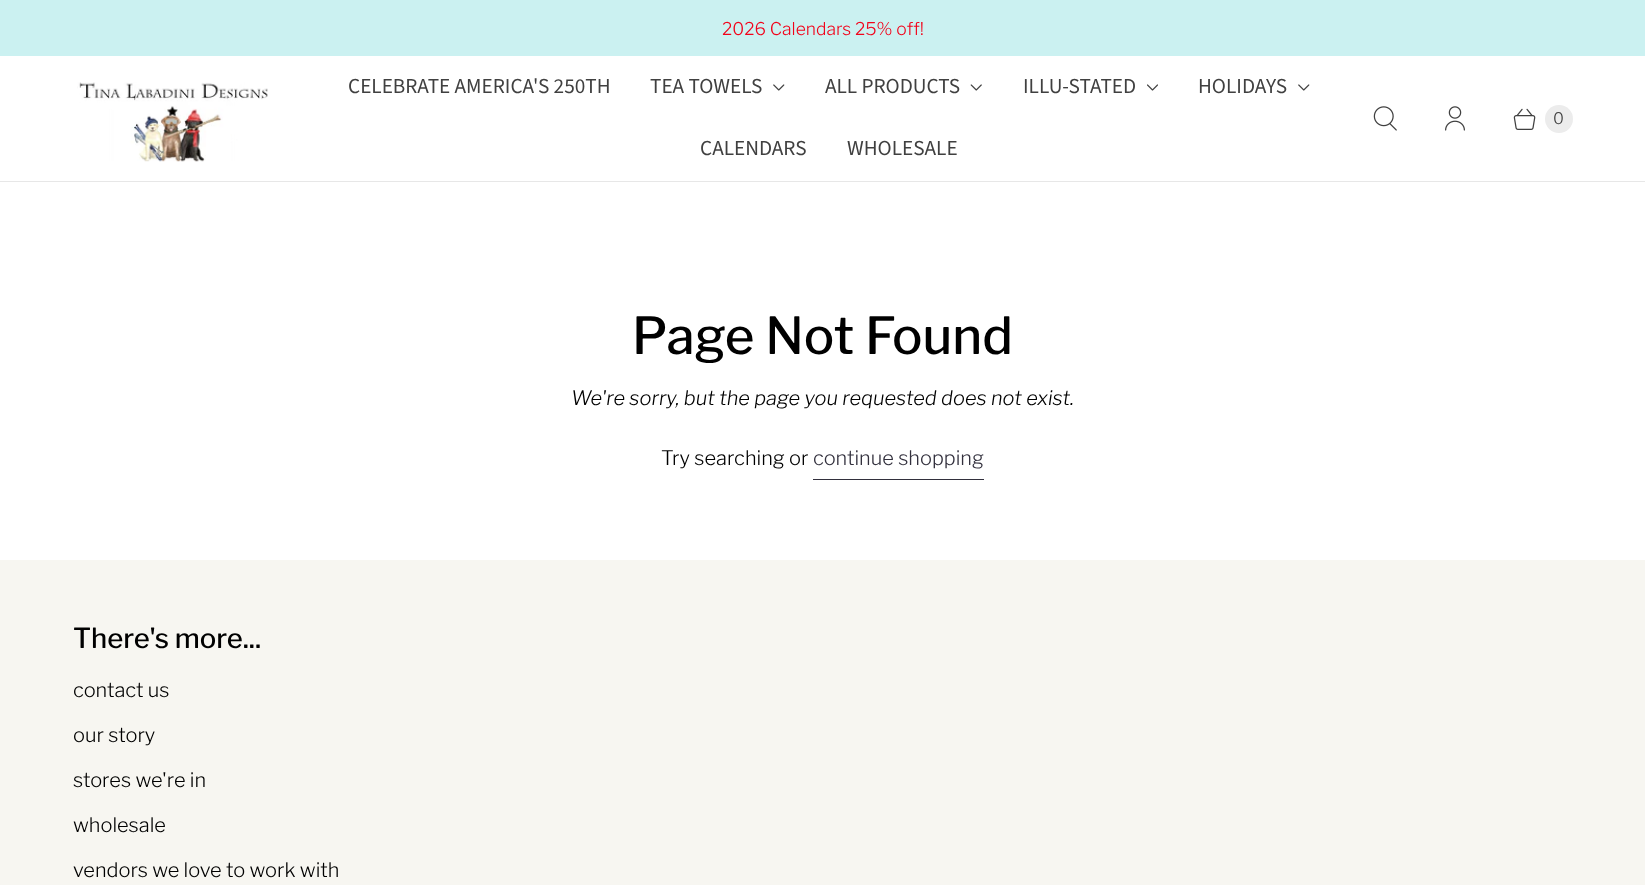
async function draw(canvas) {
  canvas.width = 1645
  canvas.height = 885
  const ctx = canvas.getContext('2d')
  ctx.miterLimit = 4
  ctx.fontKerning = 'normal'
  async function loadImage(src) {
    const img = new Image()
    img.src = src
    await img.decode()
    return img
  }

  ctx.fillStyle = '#fff'
  ctx.fillRect(0, 0, 1645, 885)
  ctx.fillStyle = '#cbf1f1'
  ctx.fillRect(0, 0, 1645, 56)
  ctx.font = '300 17.5px Libre Franklin'
  ctx.fillStyle = '#f2031a'
  ctx.fillText('2026 Calendars 25% off!', 722, 35)
  ctx.fillStyle = '#e7e7e7'
  ctx.fillRect(0, 181, 1645, 1)
  ctx.drawImage(await loadImage('image0.png'), 77, 82, 191, 80)
  ctx.font = '21.25px Source Sans Pro'
  ctx.fillStyle = '#404040'
  ctx.fillText('CELEBRATE AMERICA\'S 250TH', 348, 93)
  ctx.fillText('TEA TOWELS', 650, 93)
  ctx.drawImage(await loadImage('image1.png'), 773, 84, 12, 7)
  ctx.fillText('ALL PRODUCTS', 825, 93)
  ctx.drawImage(await loadImage('image2.png'), 970, 84, 12, 7)
  ctx.fillText('ILLU-STATED', 1023, 93)
  ctx.drawImage(await loadImage('image3.png'), 1147, 84, 11, 7)
  ctx.fillText('HOLIDAYS', 1198, 93)
  ctx.drawImage(await loadImage('image1.png'), 1298, 84, 12, 7)
  ctx.fillText('CALENDARS', 700, 155)
  ctx.fillText('WHOLESALE', 847, 155)
  ctx.drawImage(await loadImage('image4.png'), 1373, 106, 24, 25)
  ctx.drawImage(await loadImage('image5.png'), 1445, 106, 20, 25)
  ctx.drawImage(await loadImage('image6.png'), 1513, 108, 23, 22)
  ctx.fillStyle = '#ececec'
  ctx.beginPath()
  ctx.arc(1559, 119, 14, 0, 2 * Math.PI)
  ctx.fill()
  ctx.font = '300 16px Libre Franklin'
  ctx.fillStyle = '#404040'
  ctx.fillText('0', 1553, 124)
  ctx.font = '500 51px Libre Franklin'
  ctx.fillStyle = '#000'
  ctx.fillText('Page Not Found', 632, 354)
  ctx.font = 'italic 300 20px Libre Franklin'
  ctx.fillText('We\'re sorry, but the page you requested does not exist.', 571, 405)
  ctx.font = '300 20px Libre Franklin'
  ctx.fillText('Try searching or', 661, 465)
  ctx.fillStyle = '#32303d'
  ctx.fillText('continue shopping', 813, 465)
  ctx.fillRect(813, 479, 171, 1)
  ctx.fillStyle = '#f7f6f1'
  ctx.fillRect(0, 560, 1645, 325)
  ctx.font = '500 27.5px Libre Franklin'
  ctx.fillStyle = '#000'
  ctx.fillText('There\'s more...', 73, 648)
  ctx.font = '300 20px Libre Franklin'
  ctx.fillText('contact us', 73, 697)
  ctx.fillText('our story', 73, 742)
  ctx.fillText('stores we\'re in', 73, 787)
  ctx.fillText('wholesale', 73, 832)
  ctx.fillText('vendors we love to work with', 73, 877)
}

draw(document.querySelector('canvas'))
